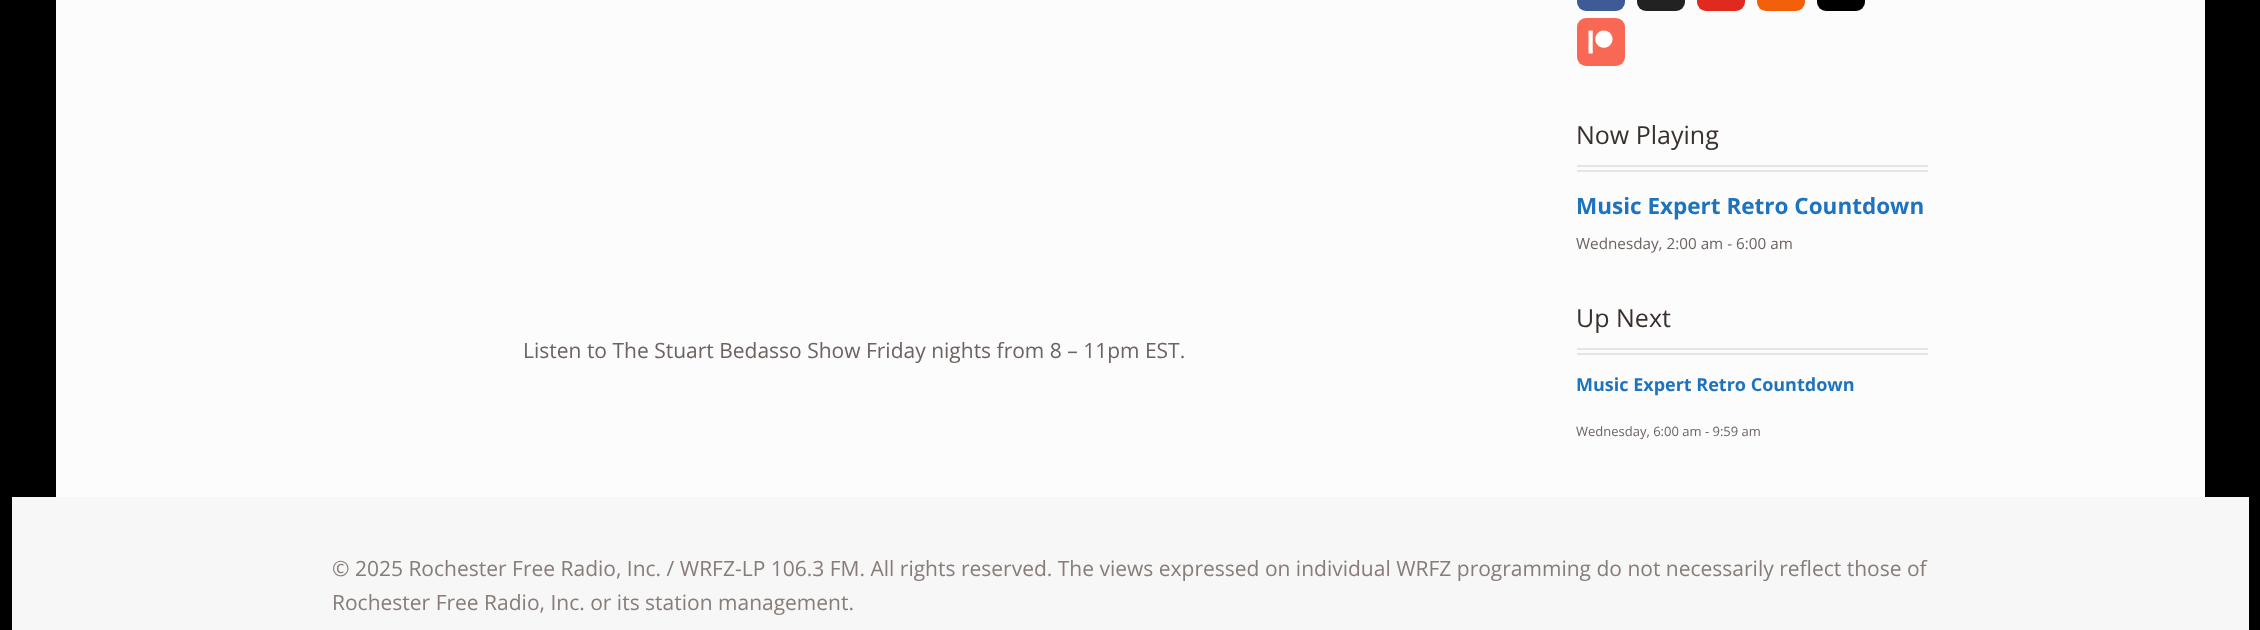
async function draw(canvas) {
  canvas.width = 2260
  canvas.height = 630
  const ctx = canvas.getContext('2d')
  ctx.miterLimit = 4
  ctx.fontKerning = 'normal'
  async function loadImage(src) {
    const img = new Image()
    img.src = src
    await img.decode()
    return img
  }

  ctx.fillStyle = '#000'
  ctx.fillRect(0, 0, 2260, 630)
  ctx.fillStyle = '#fcfcfc'
  ctx.fillRect(56, 0, 2149, 497)
  ctx.font = '21px Open Sans'
  ctx.fillStyle = '#6c6360'
  ctx.fillText('Listen to The Stuart Bedasso Show Friday nights from 8 – 11pm EST.', 523, 358)
  ctx.fillStyle = '#3e5b98'
  ctx.beginPath()
  ctx.roundRect(1577, -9, 48, 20, 9)
  ctx.fill()
  ctx.fillStyle = '#222'
  ctx.beginPath()
  ctx.roundRect(1637, -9, 48, 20, 9)
  ctx.fill()
  ctx.fillStyle = '#e02a20'
  ctx.beginPath()
  ctx.roundRect(1697, -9, 48, 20, 9)
  ctx.fill()
  ctx.fillStyle = '#f26109'
  ctx.beginPath()
  ctx.roundRect(1757, -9, 48, 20, 9)
  ctx.fill()
  ctx.fillStyle = '#000'
  ctx.beginPath()
  ctx.roundRect(1817, -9, 48, 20, 9)
  ctx.fill()
  ctx.fillStyle = '#f96854'
  ctx.beginPath()
  ctx.roundRect(1577, 18, 48, 48, 9)
  ctx.fill()
  ctx.drawImage(await loadImage('image0.png'), 1588, 30, 25, 24)
  ctx.fillStyle = '#e8e4e3'
  ctx.fillRect(1577, 165, 351, 2)
  ctx.fillRect(1577, 170, 351, 2)
  ctx.font = '25px Open Sans'
  ctx.fillStyle = '#39302d'
  ctx.fillText('Now Playing', 1576, 144)
  ctx.font = 'bold 22.5px Open Sans'
  ctx.fillStyle = '#1e73be'
  ctx.fillText('Music Expert Retro Countdown', 1576, 214)
  ctx.font = '15.25px Open Sans'
  ctx.fillStyle = '#6c6360'
  ctx.fillText('Wednesday, 2:00 am - 6:00 am', 1576, 249)
  ctx.fillStyle = '#e8e4e3'
  ctx.fillRect(1577, 348, 351, 2)
  ctx.fillRect(1577, 353, 351, 2)
  ctx.font = '25px Open Sans'
  ctx.fillStyle = '#39302d'
  ctx.fillText('Up Next', 1576, 327)
  ctx.font = 'bold 18px Open Sans'
  ctx.fillStyle = '#1e73be'
  ctx.fillText('Music Expert Retro Countdown', 1576, 391)
  ctx.font = '13px Open Sans'
  ctx.fillStyle = '#6c6360'
  ctx.fillText('Wednesday, 6:00 am - 9:59 am', 1576, 436)
  ctx.fillStyle = '#f7f7f7'
  ctx.fillRect(12, 497, 2237, 133)
  ctx.font = '21px Open Sans'
  ctx.fillStyle = '#877c78'
  ctx.fillText('© 2025 Rochester Free Radio, Inc. / WRFZ-LP 106.3 FM. All rights reserved. The views expressed on individual WRFZ programming do not necessarily reflect those of', 332, 576)
  ctx.fillText('Rochester Free Radio, Inc. or its station management.', 332, 610)
}

draw(document.querySelector('canvas'))
